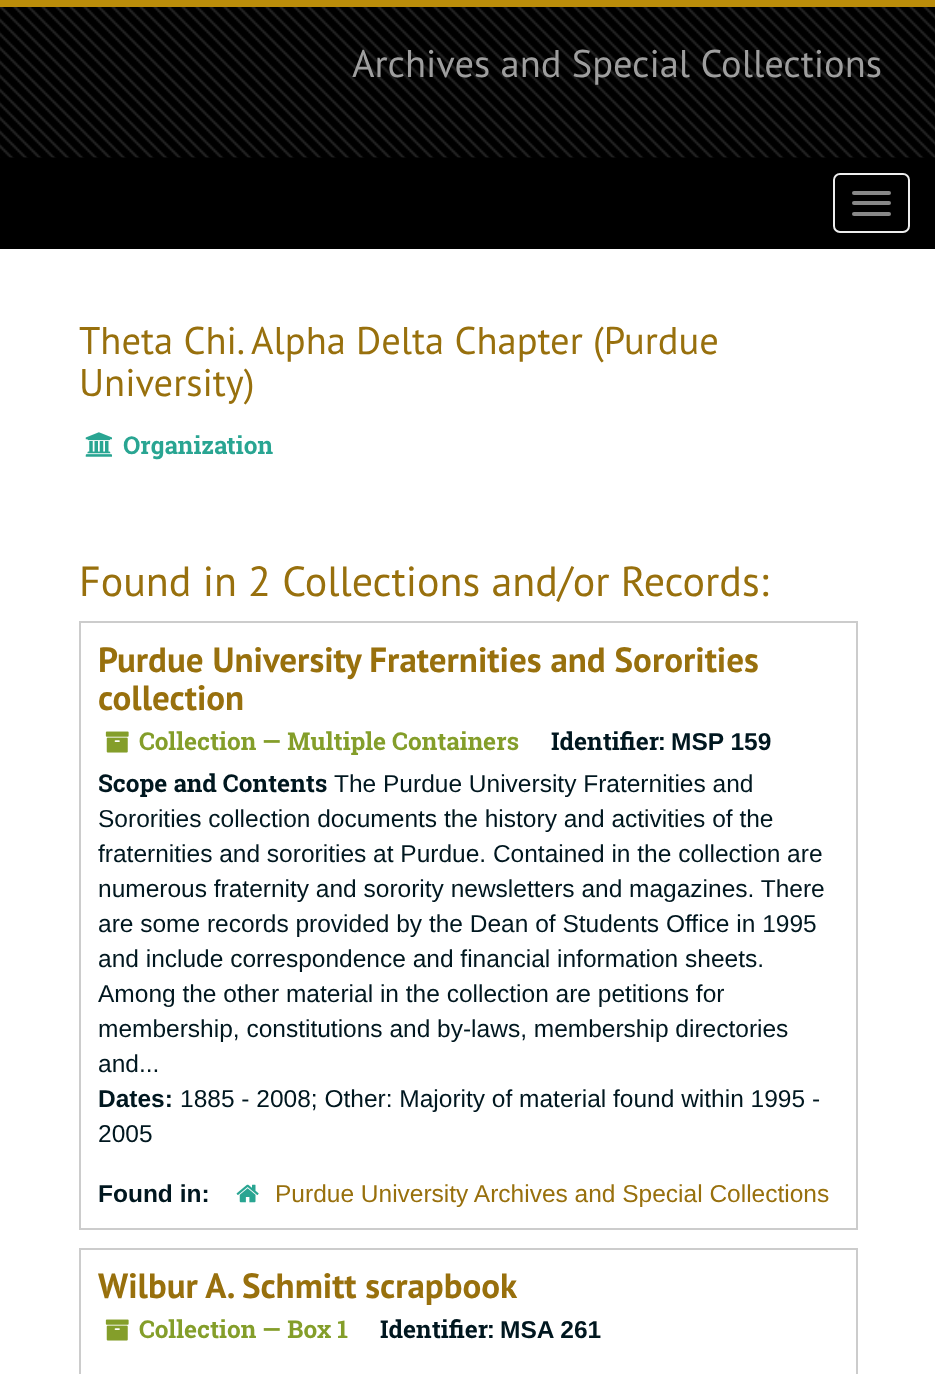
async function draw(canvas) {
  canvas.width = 935
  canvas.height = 1374
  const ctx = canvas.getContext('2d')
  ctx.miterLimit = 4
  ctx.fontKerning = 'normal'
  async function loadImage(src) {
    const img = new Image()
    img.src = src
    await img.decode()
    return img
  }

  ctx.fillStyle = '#fff'
  ctx.fillRect(0, 0, 935, 1374)
  ctx.fillStyle = '#000'
  ctx.fillRect(0, 157, 935, 92)
  ctx.drawImage(await loadImage('image0.png'), 0, 7, 935, 151)
  ctx.fillStyle = '#bb8d0a'
  ctx.fillRect(0, 0, 935, 7)
  ctx.font = '38.5px PT Sans'
  ctx.fillStyle = '#9e9e9e'
  ctx.fillText('Archives and Special Collections', 352, 77)
  ctx.beginPath()
  ctx.roundRect(834, 174, 75, 58, 6)
  ctx.strokeStyle = '#eee'
  ctx.lineWidth = 2
  ctx.stroke()
  ctx.fillStyle = '#888'
  ctx.beginPath()
  ctx.roundRect(852, 191, 39, 4, 2)
  ctx.fill()
  ctx.beginPath()
  ctx.roundRect(852, 201, 39, 4, 2)
  ctx.fill()
  ctx.beginPath()
  ctx.roundRect(852, 212, 39, 4, 2)
  ctx.fill()
  ctx.fillStyle = '#98700d'
  ctx.fillText('Theta Chi. Alpha Delta Chapter (Purdue', 79, 354)
  ctx.fillText('University)', 79, 396)
  ctx.drawImage(await loadImage('image1.png'), 85, 432, 27, 25)
  ctx.font = 'bold 24.5px Roboto Slab'
  ctx.fillStyle = '#29a592'
  ctx.fillText('Organization', 123, 454)
  ctx.font = '42px PT Sans'
  ctx.fillStyle = '#98700d'
  ctx.fillText('Found in 2 Collections and/or Records:', 79, 596)
  ctx.strokeStyle = '#ccc'
  ctx.strokeRect(80, 622, 777, 607)
  ctx.font = 'bold 35px PT Sans'
  ctx.fillText('Purdue University Fraternities and Sororities', 98, 672)
  ctx.fillText('collection', 98, 710)
  ctx.drawImage(await loadImage('image2.png'), 105, 731, 24, 22)
  ctx.font = 'bold 24.5px Roboto Slab'
  ctx.fillStyle = '#849e2a'
  ctx.fillText('Collection — Multiple Containers', 139, 750)
  ctx.fillStyle = '#00171f'
  ctx.fillText('Identifier:', 551, 750)
  ctx.font = 'bold 24.5px Liberation Sans'
  ctx.fillText('MSP 159', 671, 750)
  ctx.font = 'bold 24.5px Roboto Slab'
  ctx.fillText('Scope and Contents', 98, 792)
  ctx.font = '24.5px Liberation Sans'
  ctx.fillText('The Purdue University Fraternities and', 334, 792)
  ctx.fillText('Sororities collection documents the history and activities of the', 98, 827)
  ctx.fillText('fraternities and sororities at Purdue. Contained in the collection are', 98, 862)
  ctx.fillText('numerous fraternity and sorority newsletters and magazines. There', 98, 897)
  ctx.fillText('are some records provided by the Dean of Students Office in 1995', 98, 932)
  ctx.fillText('and include correspondence and financial information sheets.', 98, 967)
  ctx.fillText('Among the other material in the collection are petitions for', 98, 1002)
  ctx.fillText('membership, constitutions and by-laws, membership directories', 98, 1037)
  ctx.fillText('and...', 98, 1072)
  ctx.font = 'bold 24.5px Liberation Sans'
  ctx.fillText('Dates:', 98, 1107)
  ctx.font = '24.5px Liberation Sans'
  ctx.fillText('1885 - 2008; Other: Majority of material found within 1995 -', 180, 1107)
  ctx.fillText('2005', 98, 1142)
  ctx.font = 'bold 24.5px Liberation Sans'
  ctx.fillText('Found in:', 98, 1202)
  ctx.drawImage(await loadImage('image3.png'), 236, 1184, 23, 19)
  ctx.font = '24.5px Liberation Sans'
  ctx.fillStyle = '#98700d'
  ctx.fillText('Purdue University Archives and Special Collections', 275, 1202)
  ctx.strokeRect(80, 1249, 777, 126)
  ctx.font = 'bold 35px PT Sans'
  ctx.fillText('Wilbur A. Schmitt scrapbook', 98, 1298)
  ctx.drawImage(await loadImage('image2.png'), 105, 1319, 24, 22)
  ctx.font = 'bold 24.5px Roboto Slab'
  ctx.fillStyle = '#849e2a'
  ctx.fillText('Collection — Box 1', 139, 1338)
  ctx.fillStyle = '#00171f'
  ctx.fillText('Identifier:', 380, 1338)
  ctx.font = 'bold 24.5px Liberation Sans'
  ctx.fillText('MSA 261', 500, 1338)
}

draw(document.querySelector('canvas'))
